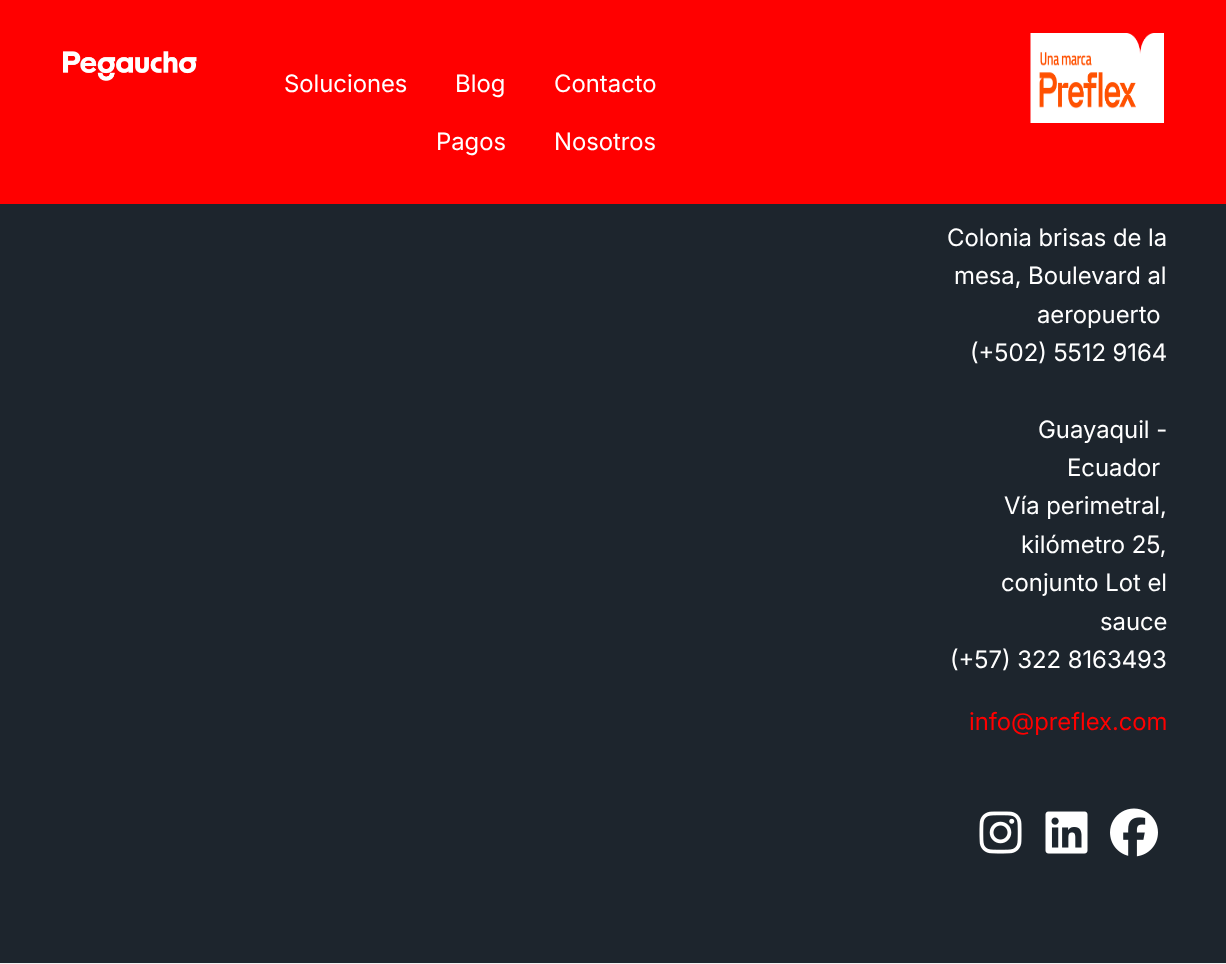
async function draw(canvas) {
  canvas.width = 1226
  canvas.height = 964
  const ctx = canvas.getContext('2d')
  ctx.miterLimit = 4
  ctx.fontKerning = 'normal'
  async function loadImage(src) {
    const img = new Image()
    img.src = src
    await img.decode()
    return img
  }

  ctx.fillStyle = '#f1f0f0'
  ctx.fillRect(0, 0, 1226, 964)
  ctx.fillStyle = '#f00'
  ctx.fillRect(0, 0, 1226, 204)
  ctx.drawImage(await loadImage('image0.png'), 63, 51, 134, 30)
  ctx.drawImage(await loadImage('image1.png'), 1030, 33, 134, 90)
  ctx.font = '24px Inter'
  ctx.fillStyle = '#fff'
  ctx.fillText('Soluciones', 284, 92)
  ctx.fillText('Blog', 455, 92)
  ctx.fillText('Contacto', 554, 92)
  ctx.fillText('Pagos', 436, 150)
  ctx.fillText('Nosotros', 554, 150)
  ctx.fillStyle = '#1d252d'
  ctx.fillRect(0, 204, 1226, 759)
  ctx.fillStyle = '#fff'
  ctx.fillText('Colonia brisas de la', 947, 246)
  ctx.fillText('mesa, Boulevard al', 954, 284)
  ctx.fillText('aeropuerto', 1037, 323)
  ctx.fillText('(+502) 5512 9164', 970, 361)
  ctx.fillText('Guayaquil -', 1038, 438)
  ctx.fillText('Ecuador', 1067, 476)
  ctx.fillText('Vía perimetral,', 1004, 514)
  ctx.fillText('kilómetro 25,', 1021, 553)
  ctx.fillText('conjunto Lot el', 1001, 591)
  ctx.fillText('sauce', 1100, 630)
  ctx.fillText('(+57) 322 8163493', 950, 668)
  ctx.fillStyle = '#f00'
  ctx.fillText('info@preflex.com', 969, 730)
  ctx.drawImage(await loadImage('image2.png'), 979, 811, 43, 43)
  ctx.drawImage(await loadImage('image3.png'), 1045, 811, 43, 43)
  ctx.drawImage(await loadImage('image4.png'), 1110, 808, 48, 49)
}

draw(document.querySelector('canvas'))
